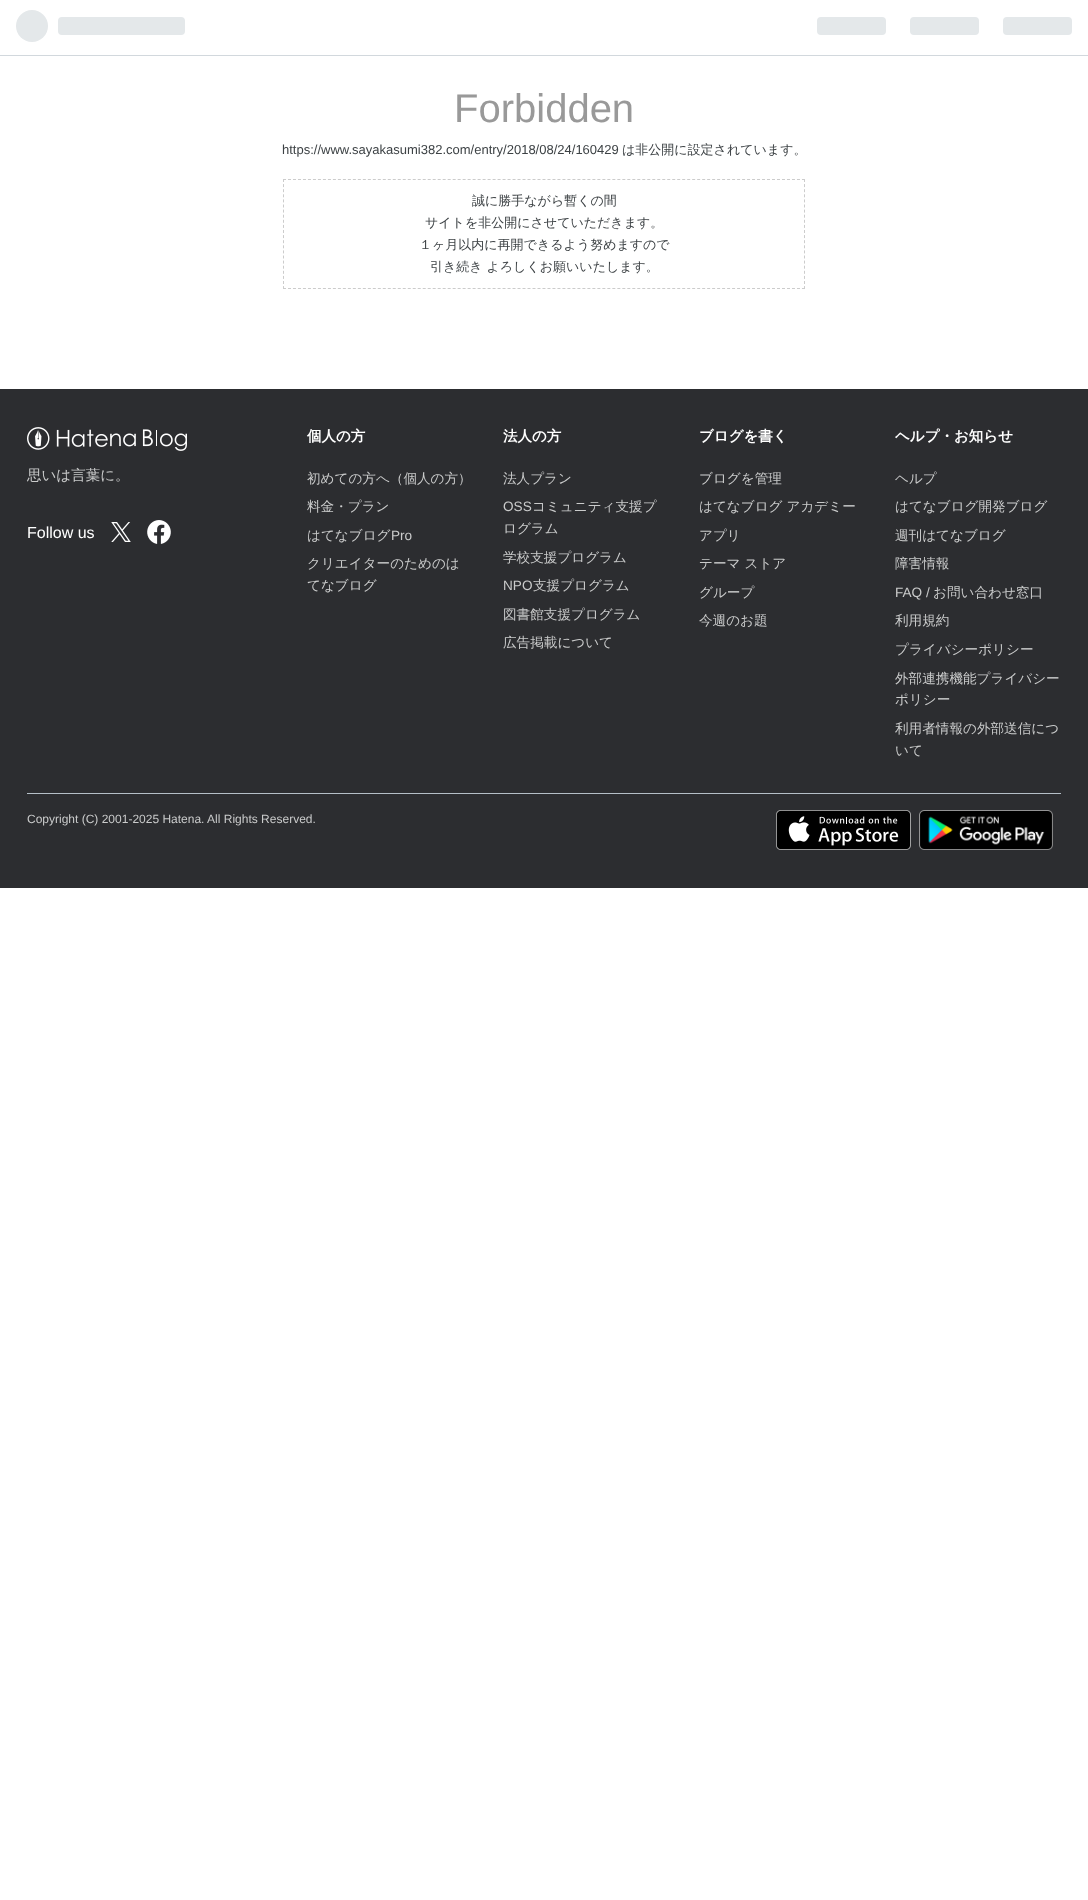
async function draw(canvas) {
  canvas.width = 1088
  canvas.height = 1900
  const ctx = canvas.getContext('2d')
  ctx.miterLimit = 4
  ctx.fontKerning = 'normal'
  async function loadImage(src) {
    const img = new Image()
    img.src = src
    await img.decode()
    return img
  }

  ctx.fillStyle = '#fff'
  ctx.fillRect(0, 0, 1088, 1900)
  ctx.fillStyle = '#d2d8dd'
  ctx.fillRect(0, 55, 1088, 1)
  ctx.drawImage(await loadImage('image0.png'), 16, 10, 169, 32)
  ctx.drawImage(await loadImage('image1.png'), 817, 17, 255, 18)
  ctx.font = '40px Liberation Sans'
  ctx.fillStyle = '#999'
  ctx.fillText('Forbidden', 454, 122)
  ctx.font = '13px Liberation Sans'
  ctx.fillStyle = '#3d4245'
  ctx.fillText('https://www.sayakasumi382.com/entry/2018/08/24/160429', 282, 154)
  ctx.font = '500 13px WenQuanYi Zen Hei'
  ctx.fillText('は非公開に設定されています。', 622, 154)
  ctx.beginPath()
  ctx.moveTo(283, 179.5)
  ctx.lineTo(805, 179.5)
  ctx.strokeStyle = '#ccc'
  ctx.setLineDash([3, 1.99])
  ctx.stroke()
  ctx.beginPath()
  ctx.moveTo(804.5, 179)
  ctx.lineTo(804.5, 289)
  ctx.setLineDash([3, 2.1])
  ctx.stroke()
  ctx.beginPath()
  ctx.moveTo(283, 288.5)
  ctx.lineTo(805, 288.5)
  ctx.setLineDash([3, 1.99])
  ctx.stroke()
  ctx.beginPath()
  ctx.moveTo(283.5, 179)
  ctx.lineTo(283.5, 289)
  ctx.setLineDash([3, 2.1])
  ctx.stroke()
  ctx.fillText('誠に勝手ながら暫くの間', 472, 205)
  ctx.fillText('サイトを非公開にさせていただきます。', 425, 227)
  ctx.fillText('１ヶ月以内に再開できるよう努めますので', 419, 249)
  ctx.fillText('引き続き よろしくお願いいたします。', 430, 271)
  ctx.fillStyle = '#2c2d30'
  ctx.fillRect(0, 389, 1088, 499)
  ctx.drawImage(await loadImage('image2.png'), 27, 427, 160, 24)
  ctx.font = '500 14.5px WenQuanYi Zen Hei'
  ctx.fillStyle = '#cacbcb'
  ctx.fillText('思いは言葉に。', 27, 480)
  ctx.font = '16px Liberation Sans'
  ctx.fillStyle = '#fff'
  ctx.fillText('Follow us', 27, 538)
  ctx.drawImage(await loadImage('image3.png'), 111, 522, 20, 20)
  ctx.drawImage(await loadImage('image4.png'), 147, 520, 24, 24)
  ctx.font = 'bold 14.5px WenQuanYi Zen Hei'
  ctx.fillText('個人の方', 307, 441)
  ctx.font = '500 13.6px WenQuanYi Zen Hei'
  ctx.fillStyle = '#cacbcb'
  ctx.fillText('初めての方へ（個人の方）', 307, 483)
  ctx.fillText('料金・プラン', 307, 511)
  ctx.fillText('はてなブログ', 307, 540)
  ctx.font = '13.6px Liberation Sans'
  ctx.fillText('Pro', 391, 540)
  ctx.font = '500 13.6px WenQuanYi Zen Hei'
  ctx.fillText('クリエイターのためのは', 307, 568)
  ctx.fillText('てなブログ', 307, 590)
  ctx.font = 'bold 14.5px WenQuanYi Zen Hei'
  ctx.fillStyle = '#fff'
  ctx.fillText('法人の方', 503, 441)
  ctx.font = '500 13.6px WenQuanYi Zen Hei'
  ctx.fillStyle = '#cacbcb'
  ctx.fillText('法人プラン', 503, 483)
  ctx.font = '13.6px Liberation Sans'
  ctx.fillText('OSS', 503, 511)
  ctx.font = '500 13.6px WenQuanYi Zen Hei'
  ctx.fillText('コミュニティ支援プ', 532, 511)
  ctx.fillText('ログラム', 503, 533)
  ctx.fillText('学校支援プログラム', 503, 562)
  ctx.font = '13.6px Liberation Sans'
  ctx.fillText('NPO', 503, 590)
  ctx.font = '500 13.6px WenQuanYi Zen Hei'
  ctx.fillText('支援プログラム', 533, 590)
  ctx.fillText('図書館支援プログラム', 503, 619)
  ctx.fillText('広告掲載について', 503, 647)
  ctx.font = 'bold 14.5px WenQuanYi Zen Hei'
  ctx.fillStyle = '#fff'
  ctx.fillText('ブログを書く', 699, 441)
  ctx.font = '500 13.6px WenQuanYi Zen Hei'
  ctx.fillStyle = '#cacbcb'
  ctx.fillText('ブログを管理', 699, 483)
  ctx.fillText('はてなブログ アカデミー', 699, 511)
  ctx.fillText('アプリ', 699, 540)
  ctx.fillText('テーマ ストア', 699, 568)
  ctx.fillText('グループ', 699, 597)
  ctx.fillText('今週のお題', 699, 625)
  ctx.font = 'bold 14.5px WenQuanYi Zen Hei'
  ctx.fillStyle = '#fff'
  ctx.fillText('ヘルプ・お知らせ', 895, 441)
  ctx.font = '500 13.6px WenQuanYi Zen Hei'
  ctx.fillStyle = '#cacbcb'
  ctx.fillText('ヘルプ', 895, 483)
  ctx.fillText('はてなブログ開発ブログ', 895, 511)
  ctx.fillText('週刊はてなブログ', 895, 540)
  ctx.fillText('障害情報', 895, 568)
  ctx.font = '13.6px Liberation Sans'
  ctx.fillText('FAQ /', 895, 597)
  ctx.font = '500 13.6px WenQuanYi Zen Hei'
  ctx.fillText('お問い合わせ窓口', 933, 597)
  ctx.fillText('利用規約', 895, 625)
  ctx.fillText('プライバシーポリシー', 895, 654)
  ctx.fillText('外部連携機能プライバシー', 895, 683)
  ctx.fillText('ポリシー', 895, 704)
  ctx.fillText('利用者情報の外部送信につ', 895, 733)
  ctx.fillText('いて', 895, 755)
  ctx.fillStyle = '#b5bfc7'
  ctx.fillRect(27, 793, 1034, 1)
  ctx.font = '12px Liberation Sans'
  ctx.fillStyle = '#cacbcb'
  ctx.fillText('Copyright (C) 2001-2025 Hatena. All Rights Reserved.', 27, 823)
  ctx.drawImage(await loadImage('image5.png'), 776, 810, 135, 40)
  ctx.drawImage(await loadImage('image6.png'), 919, 810, 134, 40)
}

draw(document.querySelector('canvas'))
